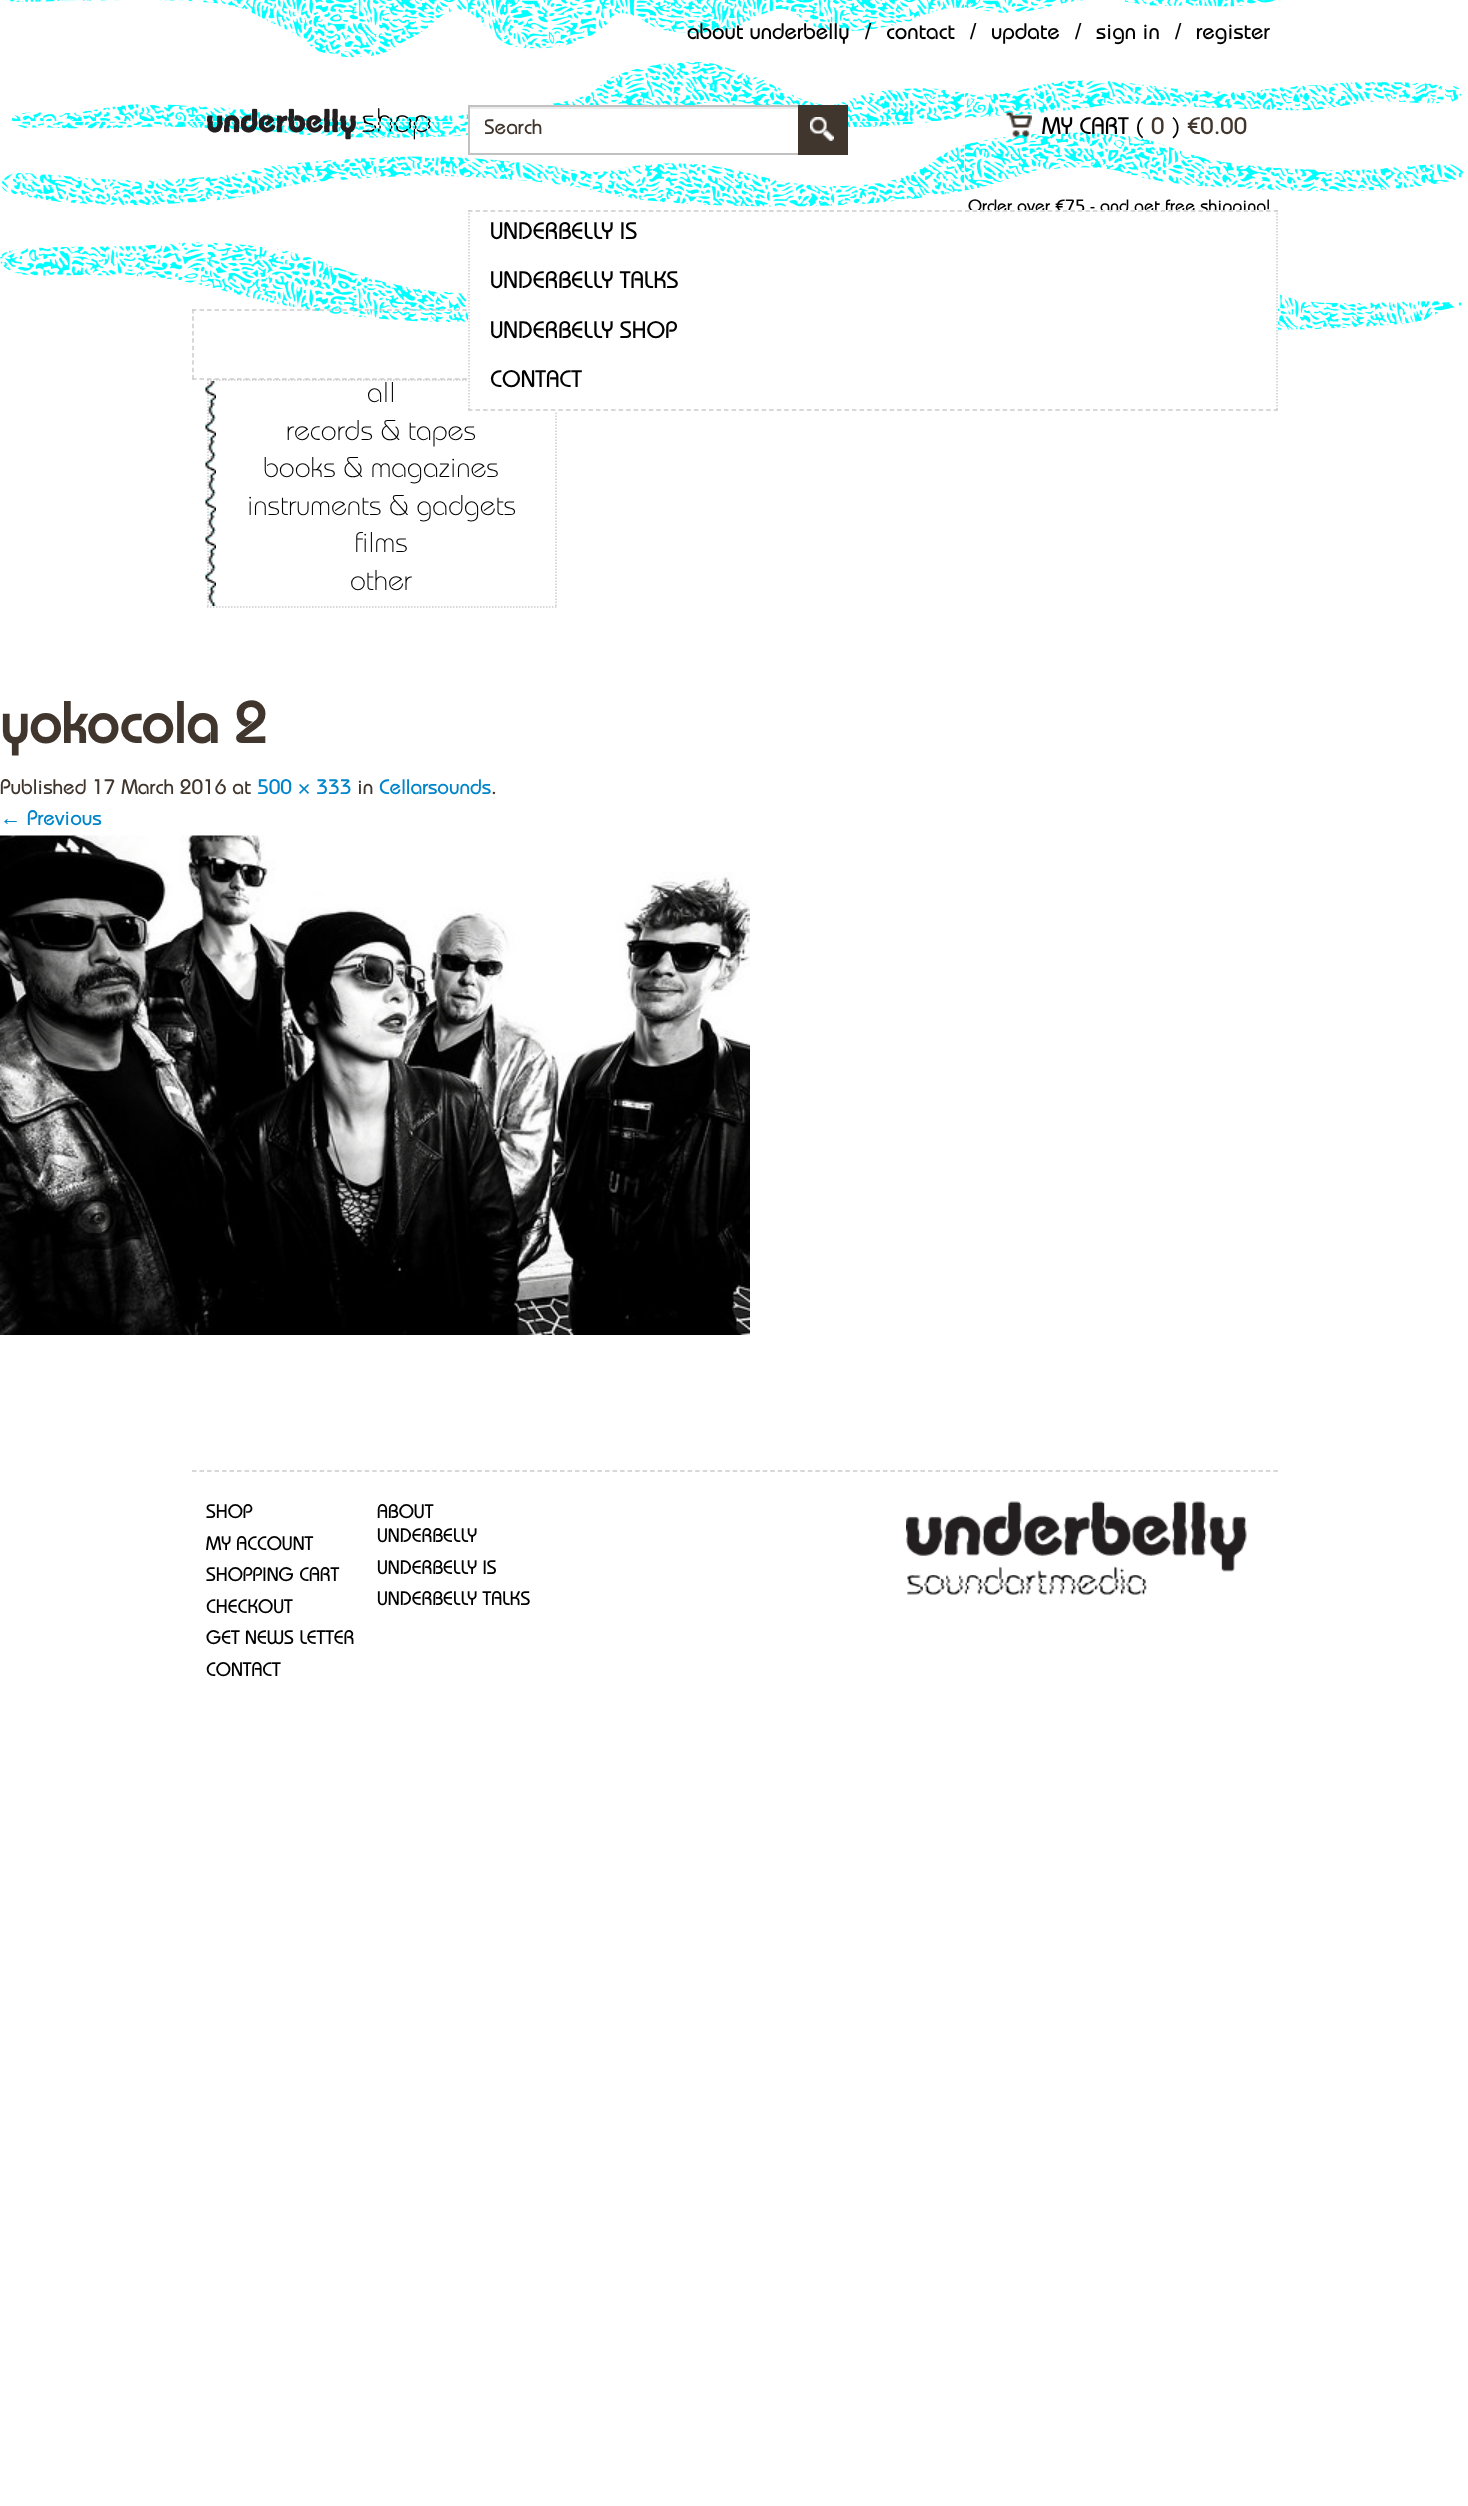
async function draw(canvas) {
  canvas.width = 1468
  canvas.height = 2506
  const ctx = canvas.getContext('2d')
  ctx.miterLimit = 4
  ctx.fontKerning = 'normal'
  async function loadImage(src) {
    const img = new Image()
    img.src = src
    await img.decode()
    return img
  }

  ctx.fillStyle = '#fff'
  ctx.fillRect(0, 0, 1468, 2506)
  ctx.drawImage(await loadImage('image0.png'), 0, 0, 1463, 330)
  ctx.font = '500 22.5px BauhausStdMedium'
  ctx.fillStyle = '#000'
  ctx.fillText('about underbelly', 687, 39)
  ctx.fillText('/', 865, 39)
  ctx.fillText('contact', 886, 39)
  ctx.fillText('/', 970, 39)
  ctx.fillText('update', 991, 39)
  ctx.fillText('/', 1075, 39)
  ctx.fillText('sign in', 1096, 39)
  ctx.fillText('/', 1175, 39)
  ctx.fillText('register', 1196, 39)
  ctx.drawImage(await loadImage('image1.png'), 207, 108, 224, 32)
  ctx.fillStyle = '#fff'
  ctx.fillRect(470, 109, 328, 27)
  ctx.fillStyle = '#ececec'
  ctx.fillRect(470, 107, 330, 2)
  ctx.strokeStyle = '#c1c1c1'
  ctx.lineWidth = 2
  ctx.strokeRect(469, 106, 331, 48)
  ctx.save()
  ctx.beginPath()
  ctx.rect(485, 117, 300, 26)
  ctx.clip()
  ctx.font = '500 21px BauhausStdMedium'
  ctx.fillStyle = '#40362e'
  ctx.fillText('Search', 484, 134)
  ctx.restore()
  ctx.fillStyle = '#40362e'
  ctx.fillRect(798, 105, 50, 50)
  ctx.drawImage(await loadImage('image2.png'), 810, 117, 24, 24)
  ctx.drawImage(await loadImage('image3.png'), 1006, 112, 26, 25)
  ctx.font = '500 24px BauhausStdMedium'
  ctx.fillStyle = '#000'
  ctx.fillText('MY CART (', 1042, 134)
  ctx.fillStyle = '#40362e'
  ctx.fillText('0', 1151, 134)
  ctx.fillStyle = '#000'
  ctx.fillText(')', 1171, 134)
  ctx.fillStyle = '#40362e'
  ctx.fillText('€0.00', 1187, 134)
  ctx.font = '500 18px BauhausStdMedium'
  ctx.fillStyle = '#000'
  ctx.fillText('Order over €75,- and get free shipping!', 968, 212)
  ctx.beginPath()
  ctx.moveTo(192, 310)
  ctx.lineTo(1278, 310)
  ctx.strokeStyle = '#ccc'
  ctx.lineWidth = 1.5
  ctx.setLineDash([4.5, 3.01])
  ctx.stroke()
  ctx.beginPath()
  ctx.moveTo(192, 379)
  ctx.lineTo(1278, 379)
  ctx.stroke()
  ctx.beginPath()
  ctx.moveTo(207, 380)
  ctx.lineTo(556.5, 380)
  ctx.setLineDash([1.5, 1.5])
  ctx.stroke()
  ctx.beginPath()
  ctx.moveTo(556, 379.5)
  ctx.lineTo(556, 607.5)
  ctx.stroke()
  ctx.fillStyle = '#fff'
  ctx.fillRect(468, 210, 810, 201)
  ctx.beginPath()
  ctx.moveTo(468, 211)
  ctx.lineTo(1278, 211)
  ctx.setLineDash([4.5, 3.03])
  ctx.stroke()
  ctx.beginPath()
  ctx.moveTo(1277, 210)
  ctx.lineTo(1277, 411)
  ctx.setLineDash([1.5, 1.5])
  ctx.stroke()
  ctx.beginPath()
  ctx.moveTo(468, 410)
  ctx.lineTo(1278, 410)
  ctx.setLineDash([4.5, 3.03])
  ctx.stroke()
  ctx.beginPath()
  ctx.moveTo(469, 210)
  ctx.lineTo(469, 411)
  ctx.setLineDash([1.5, 1.5])
  ctx.stroke()
  ctx.font = '500 24px BauhausStdMedium'
  ctx.fillStyle = '#000'
  ctx.fillText('UNDERBELLY IS', 490, 239)
  ctx.fillText('UNDERBELLY TALKS', 490, 288)
  ctx.fillText('UNDERBELLY SHOP', 490, 338)
  ctx.fillText('CONTACT', 490, 387)
  ctx.beginPath()
  ctx.moveTo(193, 309)
  ctx.lineTo(193, 379.5)
  ctx.setLineDash([4.5, 2.83])
  ctx.stroke()
  ctx.beginPath()
  ctx.moveTo(207, 607)
  ctx.lineTo(556.5, 607)
  ctx.setLineDash([1.5, 1.5])
  ctx.stroke()
  ctx.beginPath()
  ctx.moveTo(208, 379.5)
  ctx.lineTo(208, 607.5)
  ctx.stroke()
  ctx.drawImage(await loadImage('image4.png'), 205, 381, 11, 38)
  ctx.font = '300 28.5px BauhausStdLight'
  ctx.fillText('all', 367, 402)
  ctx.drawImage(await loadImage('image5.png'), 205, 418, 11, 38)
  ctx.fillText('records & tapes', 286, 440)
  ctx.drawImage(await loadImage('image4.png'), 205, 456, 11, 38)
  ctx.fillText('books & magazines', 263, 477)
  ctx.drawImage(await loadImage('image5.png'), 205, 493, 11, 38)
  ctx.fillText('instruments & gadgets', 247, 515)
  ctx.drawImage(await loadImage('image4.png'), 205, 531, 11, 38)
  ctx.fillText('films', 354, 552)
  ctx.drawImage(await loadImage('image5.png'), 205, 568, 11, 38)
  ctx.fillText('other', 350, 590)
  ctx.font = 'bold 57.75px BauhausStdMedium'
  ctx.fillStyle = '#40362e'
  ctx.fillText('yokocola 2', 0, 743)
  ctx.font = '500 21px BauhausStdMedium'
  ctx.fillText('Published 17 March 2016 at', 0, 794)
  ctx.fillStyle = '#0085cb'
  ctx.fillText('500 × 333', 257, 794)
  ctx.fillStyle = '#40362e'
  ctx.fillText('in', 357, 794)
  ctx.fillStyle = '#0085cb'
  ctx.fillText('Cellarsounds', 379, 794)
  ctx.fillStyle = '#40362e'
  ctx.fillText('.', 491, 794)
  ctx.font = '21px Liberation Serif'
  ctx.fillStyle = '#0085cb'
  ctx.fillText('←', 0, 825)
  ctx.font = '500 21px BauhausStdMedium'
  ctx.fillText('Previous', 27, 825)
  ctx.drawImage(await loadImage('image6.png'), 0, 835, 750, 500)
  ctx.beginPath()
  ctx.moveTo(192, 1471)
  ctx.lineTo(1278, 1471)
  ctx.setLineDash([4.5, 3.01])
  ctx.stroke()
  ctx.font = '500 19.5px BauhausStdMedium'
  ctx.fillStyle = '#000'
  ctx.fillText('SHOP', 206, 1518)
  ctx.fillText('MY ACCOUNT', 206, 1550)
  ctx.fillText('SHOPPING CART', 206, 1581)
  ctx.fillText('CHECKOUT', 206, 1613)
  ctx.fillText('GET NEWS LETTER', 206, 1644)
  ctx.fillText('CONTACT', 206, 1676)
  ctx.fillText('ABOUT', 377, 1518)
  ctx.fillText('UNDERBELLY', 377, 1542)
  ctx.fillText('UNDERBELLY IS', 377, 1574)
  ctx.fillText('UNDERBELLY TALKS', 377, 1605)
  ctx.drawImage(await loadImage('image7.png'), 906, 1501, 341, 94)
}

draw(document.querySelector('canvas'))
